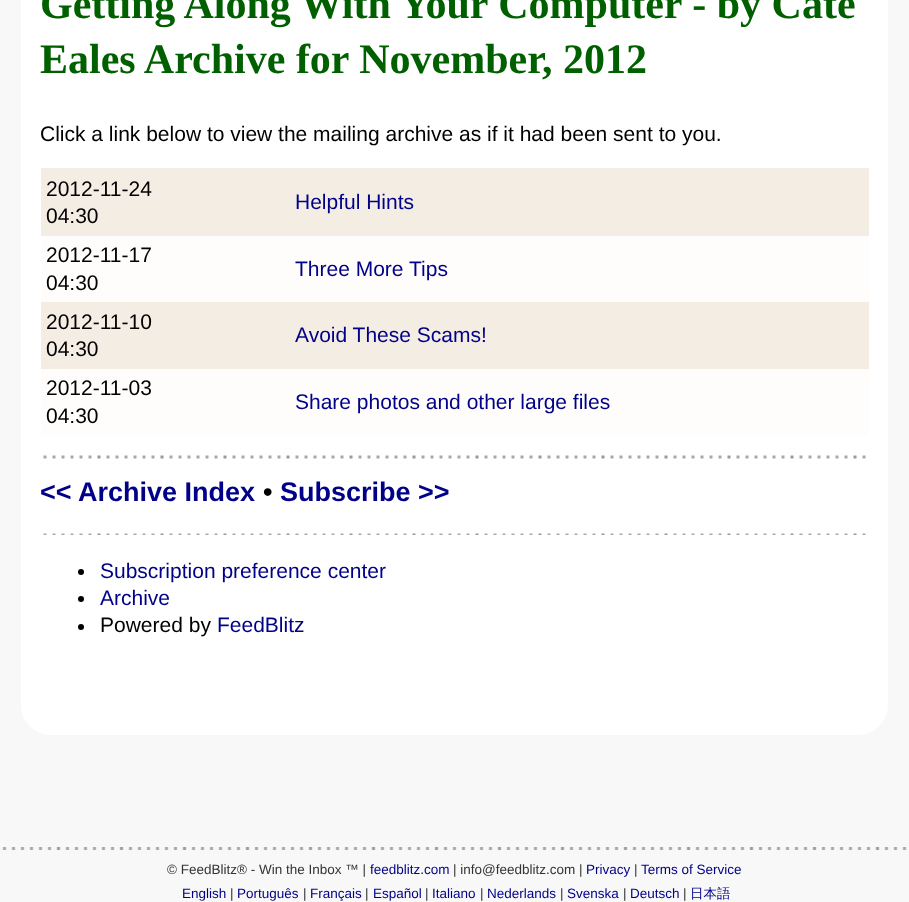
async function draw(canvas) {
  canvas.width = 909
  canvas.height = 902
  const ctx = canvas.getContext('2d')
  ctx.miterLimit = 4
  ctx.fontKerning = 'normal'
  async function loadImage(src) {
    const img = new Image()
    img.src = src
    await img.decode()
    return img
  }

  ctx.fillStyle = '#f8f8f8'
  ctx.fillRect(0, 0, 909, 902)
  ctx.fillStyle = '#fff'
  ctx.beginPath()
  ctx.roundRect(21, -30, 867, 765, 30)
  ctx.fill()
  ctx.font = 'bold 42px Liberation Serif'
  ctx.fillStyle = '#006000'
  ctx.fillText('Getting Along With Your Computer - by Cate', 40, 18)
  ctx.fillText('Eales Archive for November, 2012', 40, 73)
  ctx.font = '21px Liberation Sans'
  ctx.fillStyle = '#000'
  ctx.fillText('Click a link below to view the mailing archive as if it had been sent to you.', 40, 141)
  ctx.fillStyle = '#f3ede4'
  ctx.fillRect(41, 168, 828, 68)
  ctx.fillStyle = '#000'
  ctx.fillText('2012-11-24', 46, 196)
  ctx.fillText('04:30', 46, 223)
  ctx.fillStyle = '#008'
  ctx.fillText('Helpful Hints', 295, 209)
  ctx.fillStyle = '#fffdfc'
  ctx.fillRect(41, 236, 828, 66)
  ctx.fillStyle = '#000'
  ctx.fillText('2012-11-17', 46, 262)
  ctx.fillText('04:30', 46, 290)
  ctx.fillStyle = '#008'
  ctx.fillText('Three More Tips', 295, 276)
  ctx.fillStyle = '#f3ede4'
  ctx.fillRect(41, 302, 828, 67)
  ctx.fillStyle = '#000'
  ctx.fillText('2012-11-10', 46, 329)
  ctx.fillText('04:30', 46, 356)
  ctx.fillStyle = '#008'
  ctx.fillText('Avoid These Scams!', 295, 342)
  ctx.fillStyle = '#fffdfc'
  ctx.fillRect(41, 369, 828, 66)
  ctx.fillStyle = '#000'
  ctx.fillText('2012-11-03', 46, 395)
  ctx.fillText('04:30', 46, 423)
  ctx.fillStyle = '#008'
  ctx.fillText('Share photos and other large files', 295, 409)
  ctx.drawImage(await loadImage('image0.png'), 43, 455, 823, 4)
  ctx.font = 'bold 27px Liberation Sans'
  ctx.fillText('<< Archive Index', 40, 501)
  ctx.fillStyle = '#000'
  ctx.fillText('•', 263, 501)
  ctx.fillStyle = '#008'
  ctx.fillText('Subscribe >>', 280, 501)
  ctx.drawImage(await loadImage('image1.png'), 43, 533, 823, 2)
  ctx.fillStyle = '#000'
  ctx.beginPath()
  ctx.arc(81, 572, 3, 0, 2 * Math.PI)
  ctx.fill()
  ctx.font = '21px Liberation Sans'
  ctx.fillStyle = '#008'
  ctx.fillText('Subscription preference center', 100, 578)
  ctx.fillStyle = '#000'
  ctx.beginPath()
  ctx.arc(81, 599, 3, 0, 2 * Math.PI)
  ctx.fill()
  ctx.fillStyle = '#008'
  ctx.fillText('Archive', 100, 605)
  ctx.fillStyle = '#000'
  ctx.beginPath()
  ctx.arc(81, 627, 3, 0, 2 * Math.PI)
  ctx.fill()
  ctx.fillText('Powered by', 100, 632)
  ctx.fillStyle = '#008'
  ctx.fillText('FeedBlitz', 217, 632)
  ctx.drawImage(await loadImage('image2.png'), 2, 847, 905, 3)
  ctx.font = '13.5px Liberation Sans'
  ctx.fillStyle = '#333'
  ctx.fillText('© FeedBlitz® - Win the Inbox ™ |', 167, 874)
  ctx.fillStyle = '#008'
  ctx.fillText('feedblitz.com', 370, 874)
  ctx.fillStyle = '#333'
  ctx.fillText('| info@feedblitz.com |', 453, 874)
  ctx.fillStyle = '#008'
  ctx.fillText('Privacy', 586, 874)
  ctx.fillStyle = '#333'
  ctx.fillText('|', 634, 874)
  ctx.fillStyle = '#008'
  ctx.fillText('Terms of Service', 641, 874)
  ctx.fillText('English', 182, 898)
  ctx.fillStyle = '#333'
  ctx.fillText('|', 230, 898)
  ctx.fillStyle = '#008'
  ctx.fillText('Português', 237, 898)
  ctx.fillStyle = '#333'
  ctx.fillText('|', 303, 898)
  ctx.fillStyle = '#008'
  ctx.fillText('Français', 310, 898)
  ctx.fillStyle = '#333'
  ctx.fillText('|', 365, 898)
  ctx.fillStyle = '#008'
  ctx.fillText('Español', 373, 898)
  ctx.fillStyle = '#333'
  ctx.fillText('|', 425, 898)
  ctx.fillStyle = '#008'
  ctx.fillText('Italiano', 432, 898)
  ctx.fillStyle = '#333'
  ctx.fillText('|', 480, 898)
  ctx.fillStyle = '#008'
  ctx.fillText('Nederlands', 487, 898)
  ctx.fillStyle = '#333'
  ctx.fillText('|', 560, 898)
  ctx.fillStyle = '#008'
  ctx.fillText('Svenska', 567, 898)
  ctx.fillStyle = '#333'
  ctx.fillText('|', 623, 898)
  ctx.fillStyle = '#008'
  ctx.fillText('Deutsch', 630, 898)
  ctx.fillStyle = '#333'
  ctx.fillText('|', 683, 898)
  ctx.font = '500 13.5px WenQuanYi Zen Hei'
  ctx.fillStyle = '#008'
  ctx.fillText('日本語', 690, 898)
}

draw(document.querySelector('canvas'))
